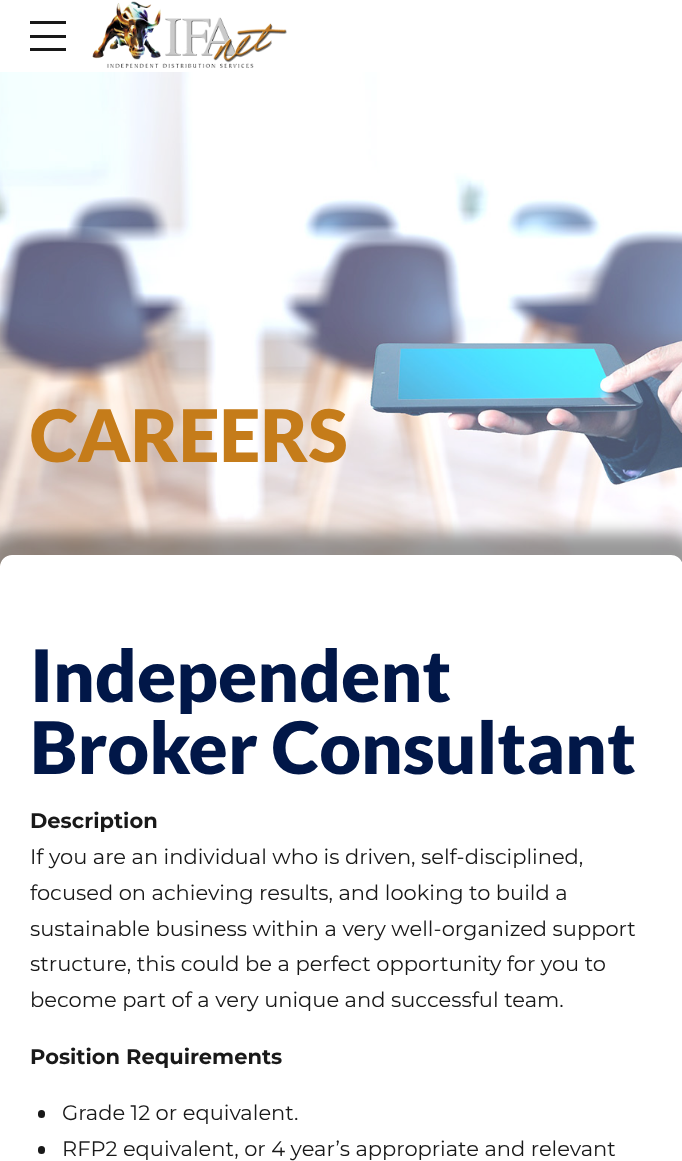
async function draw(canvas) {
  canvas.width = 682
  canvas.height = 1161
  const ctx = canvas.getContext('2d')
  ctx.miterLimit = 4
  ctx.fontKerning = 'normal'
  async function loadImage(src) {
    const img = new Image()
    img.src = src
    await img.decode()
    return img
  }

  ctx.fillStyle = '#fff'
  ctx.fillRect(0, 0, 682, 1161)
  ctx.fillStyle = '#181818'
  ctx.fillRect(30, 21, 36, 3)
  ctx.fillRect(30, 35, 36, 3)
  ctx.fillRect(30, 48, 36, 3)
  ctx.drawImage(await loadImage('image0.png'), 92, 1, 195, 67)
  ctx.drawImage(await loadImage('image1.png'), 0, 72, 682, 495)
  ctx.font = '900 72.25px Lato'
  ctx.fillStyle = '#c57c1a'
  ctx.fillText('CAREERS', 30, 462)
  ctx.fillStyle = '#fff'
  ctx.beginPath()
  ctx.roundRect(0, 555, 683, 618, 12)
  ctx.fill()
  ctx.save()
  ctx.beginPath()
  ctx.moveTo(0, 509)
  ctx.lineTo(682, 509)
  ctx.lineTo(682, 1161)
  ctx.lineTo(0, 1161)
  ctx.closePath()
  ctx.moveTo(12, 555)
  ctx.lineTo(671, 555)
  ctx.bezierCurveTo(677.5, 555, 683, 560.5, 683, 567)
  ctx.lineTo(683, 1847)
  ctx.bezierCurveTo(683, 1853.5, 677.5, 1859, 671, 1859)
  ctx.lineTo(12, 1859)
  ctx.bezierCurveTo(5.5, 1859, 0, 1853.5, 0, 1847)
  ctx.lineTo(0, 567)
  ctx.bezierCurveTo(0, 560.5, 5.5, 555, 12, 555)
  ctx.closePath()
  ctx.clip('evenodd')
  ctx.fillStyle = '#00000066'
  ctx.filter = 'blur(7.5px)'
  ctx.beginPath()
  ctx.roundRect(-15, 533, 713, 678, 27)
  ctx.fill()
  ctx.filter = 'none'
  ctx.restore()
  ctx.fillStyle = '#011748'
  ctx.fillText('Independent', 30, 702)
  ctx.fillText('Broker Consultant', 30, 774)
  ctx.font = 'bold 21px Montserrat'
  ctx.fillStyle = '#191919'
  ctx.fillText('Description', 30, 828)
  ctx.font = '21px Montserrat'
  ctx.fillText('If you are an individual who is driven, self-disciplined,', 30, 864)
  ctx.fillText('focused on achieving results, and looking to build a', 30, 900)
  ctx.fillText('sustainable business within a very well-organized support', 30, 936)
  ctx.fillText('structure, this could be a perfect opportunity for you to', 30, 971)
  ctx.fillText('become part of a very unique and successful team.', 30, 1007)
  ctx.font = 'bold 21px Montserrat'
  ctx.fillText('Position Requirements', 30, 1064)
  ctx.beginPath()
  ctx.roundRect(38, 1110, 7, 8, 3.5)
  ctx.fill()
  ctx.font = '21px Montserrat'
  ctx.fillText('Grade 12 or equivalent.', 62, 1120)
  ctx.beginPath()
  ctx.roundRect(38, 1146, 7, 8, 3.5)
  ctx.fill()
  ctx.fillText('RFP2 equivalent, or 4 year’s appropriate and relevant', 62, 1156)
}

draw(document.querySelector('canvas'))
